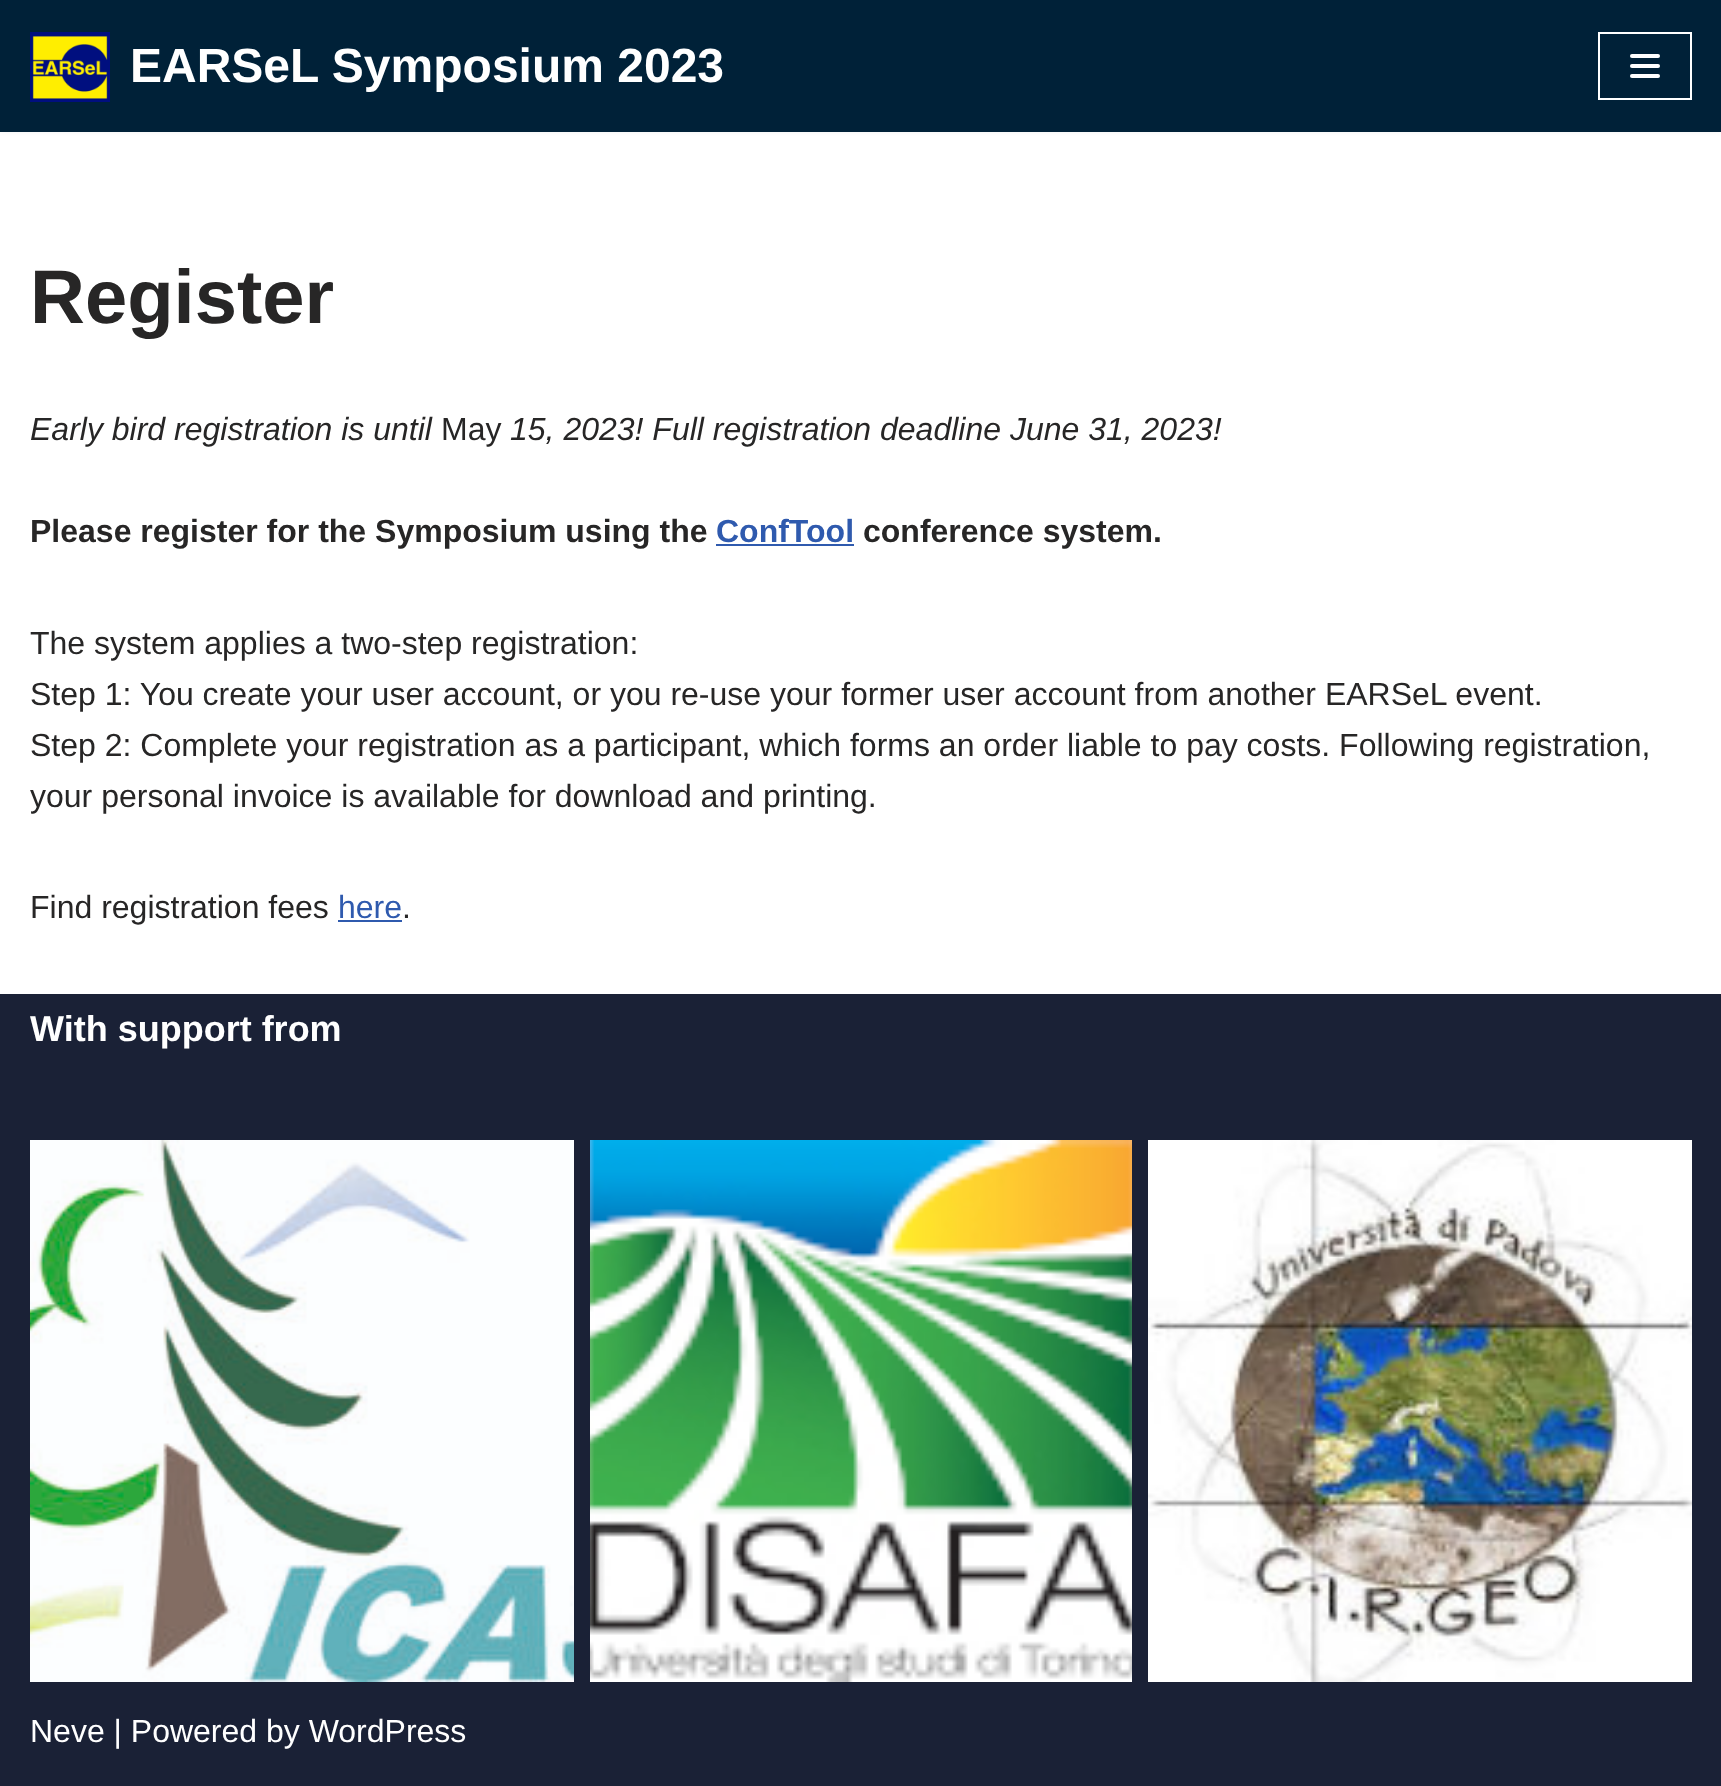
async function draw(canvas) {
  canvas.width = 1721
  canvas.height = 1786
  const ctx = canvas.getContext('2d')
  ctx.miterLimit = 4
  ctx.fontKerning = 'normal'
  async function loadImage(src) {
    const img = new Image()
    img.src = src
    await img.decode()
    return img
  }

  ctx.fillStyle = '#fff'
  ctx.fillRect(0, 0, 1721, 1786)
  ctx.fillStyle = '#0000001a'
  ctx.filter = 'blur(3px)'
  ctx.beginPath()
  ctx.rect(0, -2, 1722, 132)
  ctx.fill()
  ctx.filter = 'none'
  ctx.fillStyle = '#002138'
  ctx.fillRect(0, 0, 1721, 132)
  ctx.drawImage(await loadImage('image0.png'), 30, 32, 80, 70)
  ctx.font = 'bold 48px Liberation Sans'
  ctx.fillStyle = '#fff'
  ctx.fillText('EARSeL Symposium 2023', 130, 82)
  ctx.strokeStyle = '#fff'
  ctx.lineWidth = 2
  ctx.strokeRect(1599, 33, 92, 66)
  ctx.beginPath()
  ctx.roundRect(1630, 64, 30, 4, 2)
  ctx.fill()
  ctx.beginPath()
  ctx.roundRect(1630, 54, 30, 4, 2)
  ctx.fill()
  ctx.beginPath()
  ctx.roundRect(1630, 74, 30, 4, 2)
  ctx.fill()
  ctx.font = 'bold 76px Liberation Sans'
  ctx.fillStyle = '#272626'
  ctx.fillText('Register', 30, 323)
  ctx.font = 'italic 32px Liberation Sans'
  ctx.fillText('Early bird registration is until', 30, 440)
  ctx.font = '32px Liberation Sans'
  ctx.fillText('May', 441, 440)
  ctx.font = 'italic 32px Liberation Sans'
  ctx.fillText('15, 2023! Full registration deadline June 31, 2023!', 510, 440)
  ctx.font = 'bold 32px Liberation Sans'
  ctx.fillText('Please register for the Symposium using the', 30, 542)
  ctx.fillStyle = '#2f5aae'
  ctx.fillText('ConfTool', 716, 542)
  ctx.fillRect(716, 544, 138, 2)
  ctx.fillStyle = '#272626'
  ctx.fillText('conference system.', 863, 542)
  ctx.font = '32px Liberation Sans'
  ctx.fillText('The system applies a two-step registration:', 30, 654)
  ctx.fillText('Step 1: You create your user account, or you re-use your former user account from another EARSeL event.', 30, 705)
  ctx.fillText('Step 2: Complete your registration as a participant, which forms an order liable to pay costs. Following registration,', 30, 756)
  ctx.fillText('your personal invoice is available for download and printing.', 30, 807)
  ctx.fillText('Find registration fees', 30, 918)
  ctx.fillStyle = '#2f5aae'
  ctx.fillText('here', 338, 918)
  ctx.fillRect(338, 920, 64, 2)
  ctx.fillStyle = '#272626'
  ctx.fillText('.', 402, 918)
  ctx.fillStyle = '#1a2136'
  ctx.fillRect(0, 994, 1721, 792)
  ctx.font = 'bold 36px Liberation Sans'
  ctx.fillStyle = '#fff'
  ctx.fillText('With support from', 30, 1041)
  ctx.drawImage(await loadImage('image1.png'), 30, 1140, 544, 542)
  ctx.drawImage(await loadImage('image2.png'), 590, 1140, 542, 542)
  ctx.drawImage(await loadImage('image3.png'), 1148, 1140, 544, 542)
  ctx.font = '32px Liberation Sans'
  ctx.fillText('Neve | Powered by WordPress', 30, 1742)
}

draw(document.querySelector('canvas'))
